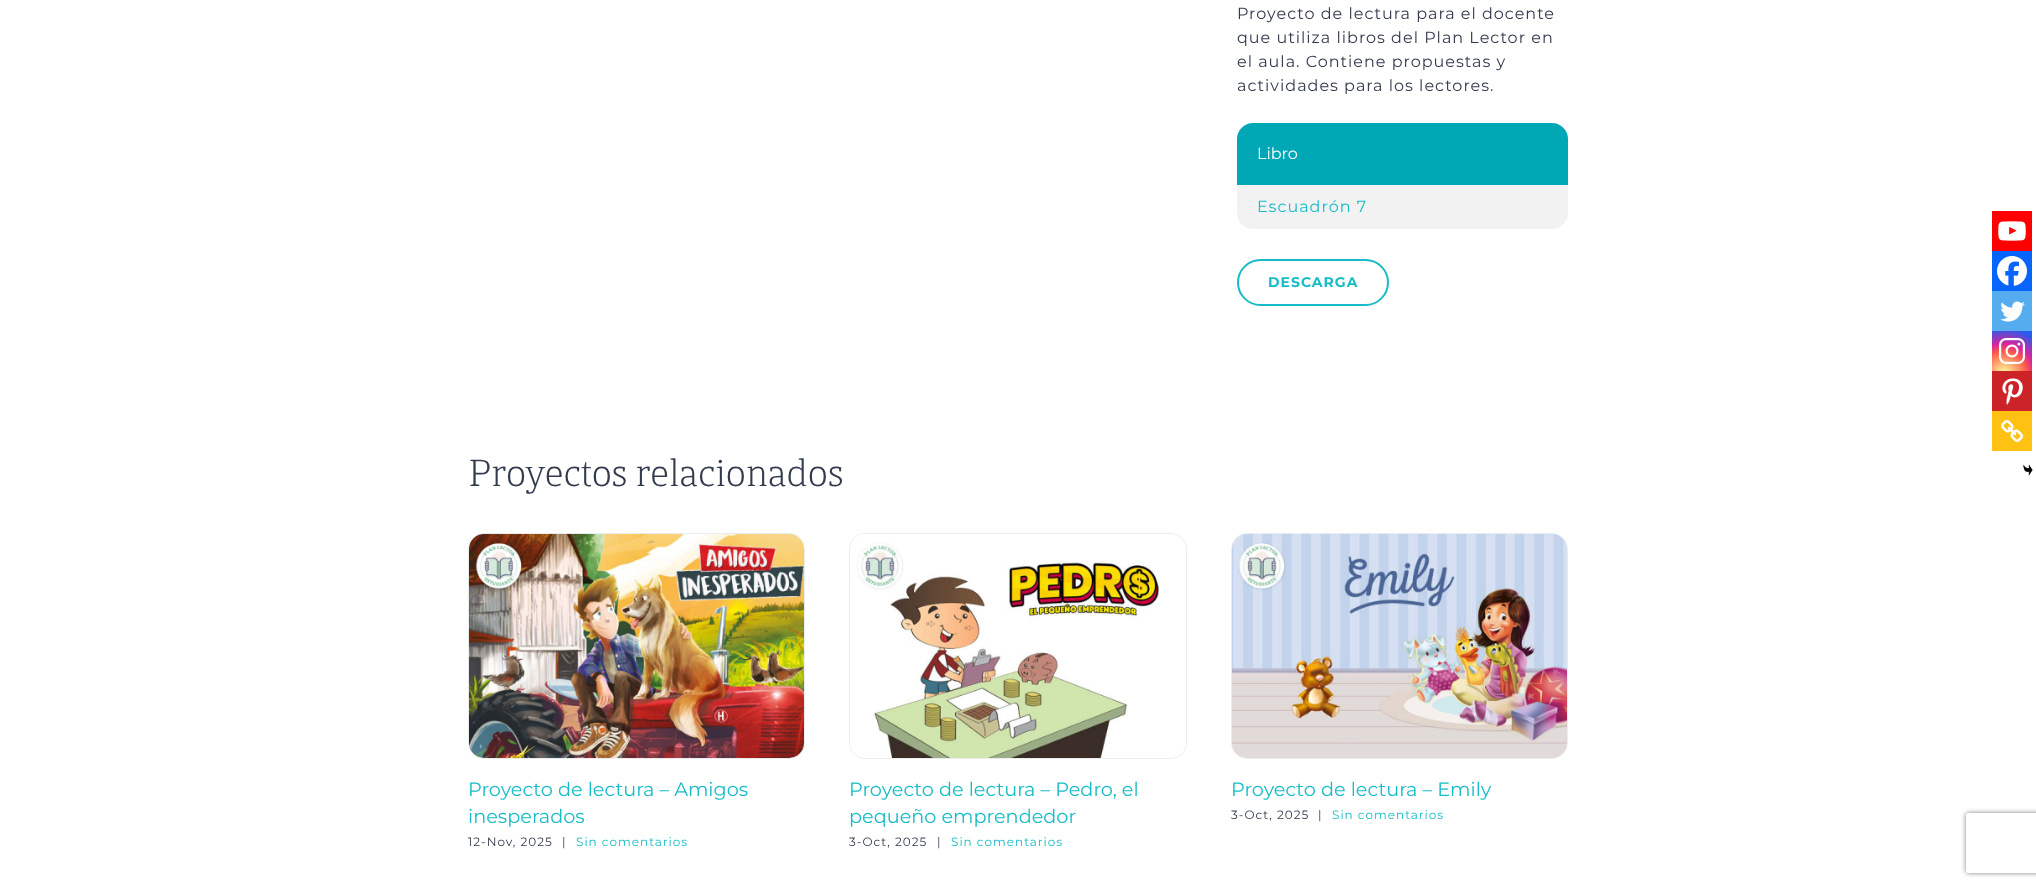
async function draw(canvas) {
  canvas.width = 2036
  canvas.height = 887
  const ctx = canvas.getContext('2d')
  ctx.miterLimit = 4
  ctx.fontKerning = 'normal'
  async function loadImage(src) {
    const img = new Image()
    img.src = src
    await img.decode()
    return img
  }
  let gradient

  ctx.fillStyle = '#fff'
  ctx.fillRect(0, 0, 2036, 887)
  ctx.letterSpacing = '1px'
  ctx.font = '16px Montserrat'
  ctx.fillStyle = '#333c4e'
  ctx.fillText('Proyecto de lectura para el docente', 1237, 19)
  ctx.fillText('que utiliza libros del Plan Lector en', 1237, 43)
  ctx.fillText('el aula. Contiene propuestas y', 1237, 67)
  ctx.fillText('actividades para los lectores.', 1237, 91)
  ctx.fillStyle = '#00a7b5'
  ctx.beginPath()
  ctx.roundRect(1237, 123, 331, 62, [16, 16, 0, 0])
  ctx.fill()
  ctx.letterSpacing = '0px'
  ctx.fillStyle = '#fff'
  ctx.fillText('Libro', 1257, 159)
  ctx.fillStyle = '#f2f2f2'
  ctx.beginPath()
  ctx.roundRect(1237, 185, 331, 44, [0, 0, 16, 16])
  ctx.fill()
  ctx.letterSpacing = '1px'
  ctx.fillStyle = '#16bcc7'
  ctx.fillText('Escuadrón 7', 1257, 212)
  ctx.beginPath()
  ctx.roundRect(1238, 260, 150, 45, 22.5)
  ctx.strokeStyle = '#16bcc7'
  ctx.lineWidth = 2
  ctx.stroke()
  ctx.font = 'bold 14px Montserrat'
  ctx.fillText('DESCARGA', 1268, 287)
  ctx.fillStyle = '#f00'
  ctx.fillRect(1992, 211, 40, 40)
  ctx.drawImage(await loadImage('image0.png'), 1998, 221, 28, 20)
  ctx.fillStyle = '#0765fe'
  ctx.fillRect(1992, 251, 40, 40)
  ctx.drawImage(await loadImage('image1.png'), 1997, 256, 30, 30)
  ctx.fillStyle = '#55acee'
  ctx.fillRect(1992, 291, 40, 40)
  ctx.drawImage(await loadImage('image2.png'), 2000, 301, 25, 21)
  gradient = ctx.createRadialGradient(2004, 374, 0, 2004, 374, 51)
  gradient.addColorStop(0, '#fdf497')
  gradient.addColorStop(0.05, '#fdf497')
  gradient.addColorStop(0.45, '#fd5949')
  gradient.addColorStop(0.6, '#d6249f')
  gradient.addColorStop(0.9, '#285aeb')
  ctx.fillStyle = gradient
  ctx.fillRect(1992, 331, 40, 40)
  ctx.drawImage(await loadImage('image3.png'), 1999, 338, 26, 26)
  ctx.fillStyle = '#cc2329'
  ctx.fillRect(1992, 371, 40, 40)
  ctx.drawImage(await loadImage('image4.png'), 2002, 378, 21, 27)
  ctx.fillStyle = '#ffc112'
  ctx.fillRect(1992, 411, 40, 40)
  ctx.drawImage(await loadImage('image5.png'), 2001, 420, 22, 22)
  ctx.drawImage(await loadImage('image6.png'), 2023, 464, 10, 12)
  ctx.letterSpacing = '0px'
  ctx.font = '41.5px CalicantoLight'
  ctx.fillStyle = '#333c4e'
  ctx.fillText('Proyectos relacionados', 468, 486)
  ctx.beginPath()
  ctx.roundRect(468.5, 533.5, 336, 225, 15.5)
  ctx.strokeStyle = '#ebeced'
  ctx.lineWidth = 1
  ctx.stroke()
  ctx.drawImage(await loadImage('image7.png'), 469, 534, 335, 224)
  ctx.font = '19.25px Montserrat'
  ctx.fillStyle = '#16bcc7'
  ctx.fillText('Proyecto de lectura – Amigos', 468, 796)
  ctx.fillText('inesperados', 468, 823)
  ctx.letterSpacing = '1px'
  ctx.font = '12px Montserrat'
  ctx.fillStyle = '#333c4e'
  ctx.fillText('12-Nov, 2025', 468, 846)
  ctx.fillText('|', 562, 846)
  ctx.fillStyle = '#16bcc7'
  ctx.fillText('Sin comentarios', 576, 846)
  ctx.beginPath()
  ctx.roundRect(849.5, 533.5, 337, 225, 15.5)
  ctx.stroke()
  ctx.drawImage(await loadImage('image8.png'), 850, 534, 336, 224)
  ctx.letterSpacing = '0px'
  ctx.font = '19.25px Montserrat'
  ctx.fillText('Proyecto de lectura – Pedro, el', 849, 796)
  ctx.fillText('pequeño emprendedor', 849, 823)
  ctx.letterSpacing = '1px'
  ctx.font = '12px Montserrat'
  ctx.fillStyle = '#333c4e'
  ctx.fillText('3-Oct, 2025', 849, 846)
  ctx.fillText('|', 937, 846)
  ctx.fillStyle = '#16bcc7'
  ctx.fillText('Sin comentarios', 951, 846)
  ctx.beginPath()
  ctx.roundRect(1231.5, 533.5, 336, 225, 15.5)
  ctx.stroke()
  ctx.drawImage(await loadImage('image9.png'), 1232, 534, 335, 224)
  ctx.letterSpacing = '0px'
  ctx.font = '19.25px Montserrat'
  ctx.fillText('Proyecto de lectura – Emily', 1231, 796)
  ctx.letterSpacing = '1px'
  ctx.font = '12px Montserrat'
  ctx.fillStyle = '#333c4e'
  ctx.fillText('3-Oct, 2025', 1231, 819)
  ctx.fillText('|', 1318, 819)
  ctx.fillStyle = '#16bcc7'
  ctx.fillText('Sin comentarios', 1332, 819)
  ctx.save()
  ctx.beginPath()
  ctx.moveTo(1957, 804)
  ctx.lineTo(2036, 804)
  ctx.lineTo(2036, 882)
  ctx.lineTo(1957, 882)
  ctx.closePath()
  ctx.moveTo(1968, 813)
  ctx.lineTo(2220, 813)
  ctx.bezierCurveTo(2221, 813, 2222, 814, 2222, 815)
  ctx.lineTo(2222, 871)
  ctx.bezierCurveTo(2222, 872, 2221, 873, 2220, 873)
  ctx.lineTo(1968, 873)
  ctx.bezierCurveTo(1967, 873, 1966, 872, 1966, 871)
  ctx.lineTo(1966, 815)
  ctx.bezierCurveTo(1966, 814, 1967, 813, 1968, 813)
  ctx.closePath()
  ctx.clip('evenodd')
  ctx.fillStyle = '#808080'
  ctx.filter = 'blur(2.5px)'
  ctx.beginPath()
  ctx.roundRect(1966, 813, 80, 60, 2)
  ctx.fill()
  ctx.filter = 'none'
  ctx.restore()
}

draw(document.querySelector('canvas'))
